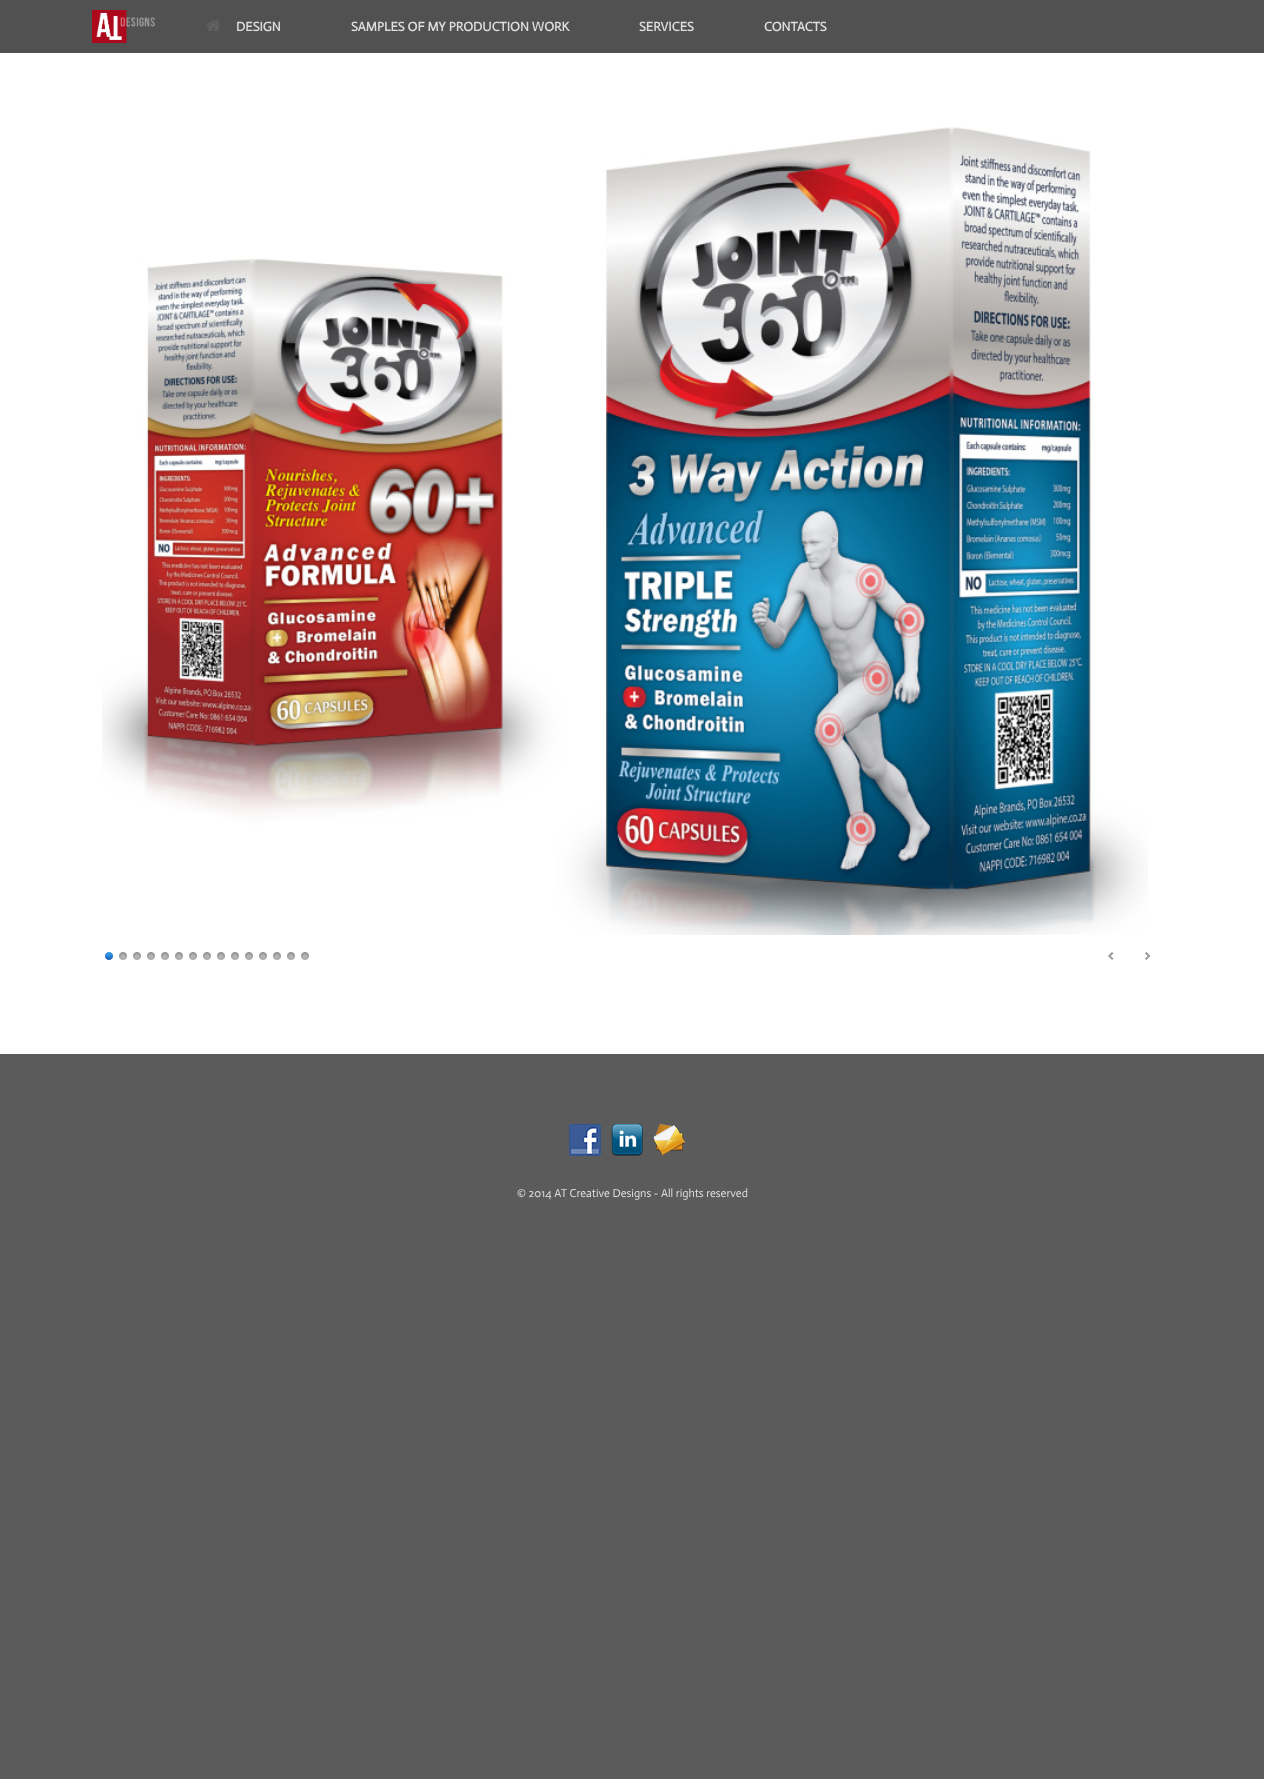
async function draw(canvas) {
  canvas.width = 1264
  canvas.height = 1779
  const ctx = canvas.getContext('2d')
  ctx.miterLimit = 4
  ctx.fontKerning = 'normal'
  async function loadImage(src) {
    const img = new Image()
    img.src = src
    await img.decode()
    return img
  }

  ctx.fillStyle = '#5b5b5b'
  ctx.fillRect(0, 0, 1264, 1779)
  ctx.fillStyle = '#515151'
  ctx.fillRect(0, 0, 1264, 53)
  ctx.drawImage(await loadImage('image0.png'), 92, 10, 64, 33)
  ctx.drawImage(await loadImage('image1.png'), 206, 19, 15, 12)
  ctx.font = 'bold 13px Actor'
  ctx.fillStyle = '#ddd'
  ctx.fillText('DESIGN', 236, 31)
  ctx.fillText('SAMPLES OF MY PRODUCTION WORK', 351, 31)
  ctx.fillText('SERVICES', 639, 31)
  ctx.fillText('CONTACTS', 764, 31)
  ctx.fillStyle = '#fff'
  ctx.fillRect(0, 53, 1264, 1001)
  ctx.drawImage(await loadImage('image2.png'), 102, 127, 1046, 808)
  ctx.drawImage(await loadImage('image3.png'), 1108, 952, 6, 8)
  ctx.drawImage(await loadImage('image4.png'), 1144, 952, 7, 8)
  ctx.drawImage(await loadImage('image5.png'), 105, 952, 8, 8)
  ctx.drawImage(await loadImage('image6.png'), 119, 952, 8, 8)
  ctx.drawImage(await loadImage('image6.png'), 133, 952, 8, 8)
  ctx.drawImage(await loadImage('image6.png'), 147, 952, 8, 8)
  ctx.drawImage(await loadImage('image6.png'), 161, 952, 8, 8)
  ctx.drawImage(await loadImage('image6.png'), 175, 952, 8, 8)
  ctx.drawImage(await loadImage('image6.png'), 189, 952, 8, 8)
  ctx.drawImage(await loadImage('image6.png'), 203, 952, 8, 8)
  ctx.drawImage(await loadImage('image6.png'), 217, 952, 8, 8)
  ctx.drawImage(await loadImage('image6.png'), 231, 952, 8, 8)
  ctx.drawImage(await loadImage('image6.png'), 245, 952, 8, 8)
  ctx.drawImage(await loadImage('image6.png'), 259, 952, 8, 8)
  ctx.drawImage(await loadImage('image6.png'), 273, 952, 8, 8)
  ctx.drawImage(await loadImage('image6.png'), 287, 952, 8, 8)
  ctx.drawImage(await loadImage('image6.png'), 301, 952, 8, 8)
  ctx.drawImage(await loadImage('image7.png'), 569, 1124, 32, 32)
  ctx.drawImage(await loadImage('image8.png'), 611, 1124, 32, 32)
  ctx.drawImage(await loadImage('image9.png'), 653, 1124, 32, 32)
  ctx.font = '11.5px Actor'
  ctx.fillStyle = '#ddd'
  ctx.fillText('© 2014 AT Creative Designs - All rights reserved', 517, 1197)
}

draw(document.querySelector('canvas'))
